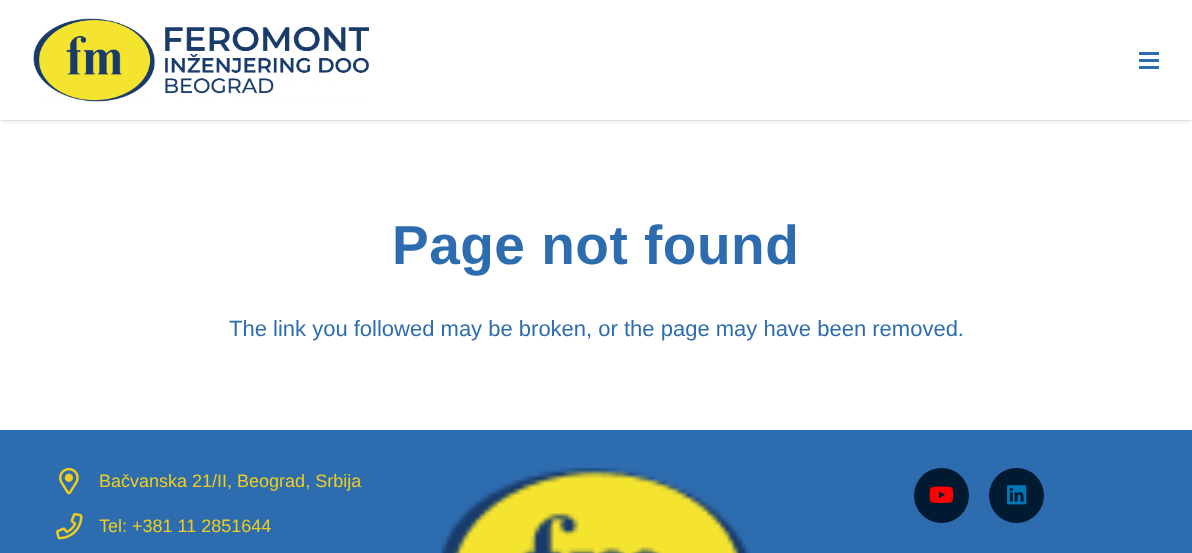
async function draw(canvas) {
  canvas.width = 1192
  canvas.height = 553
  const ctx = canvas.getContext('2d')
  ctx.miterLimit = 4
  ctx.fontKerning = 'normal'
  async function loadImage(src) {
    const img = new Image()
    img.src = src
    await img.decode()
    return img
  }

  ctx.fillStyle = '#fff'
  ctx.fillRect(0, 0, 1192, 553)
  ctx.save()
  ctx.beginPath()
  ctx.rect(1, 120, 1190, 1)
  ctx.clip()
  ctx.fillStyle = '#0000000d'
  ctx.filter = 'blur(0.5px)'
  ctx.beginPath()
  ctx.rect(1, 3, 1190, 118)
  ctx.fill()
  ctx.filter = 'none'
  ctx.restore()
  ctx.save()
  ctx.beginPath()
  ctx.rect(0, 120, 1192, 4)
  ctx.clip()
  ctx.fillStyle = '#0000001a'
  ctx.filter = 'blur(2.5px)'
  ctx.beginPath()
  ctx.rect(1, 4, 1190, 118)
  ctx.fill()
  ctx.filter = 'none'
  ctx.restore()
  ctx.drawImage(await loadImage('image0.png'), 33, 18, 336, 84)
  ctx.fillStyle = '#2e6cb0'
  ctx.fillRect(1139, 59, 20, 3)
  ctx.fillRect(1139, 52, 20, 3)
  ctx.fillRect(1139, 66, 20, 3)
  ctx.letterSpacing = '0.5px'
  ctx.font = 'bold 55px Liberation Sans'
  ctx.fillText('Page not found', 392, 264)
  ctx.letterSpacing = '0px'
  ctx.font = '22px Liberation Sans'
  ctx.fillText('The link you followed may be broken, or the page may have been removed.', 229, 336)
  ctx.fillRect(0, 430, 1192, 123)
  ctx.drawImage(await loadImage('image1.png'), 59, 467, 20, 28)
  ctx.font = '18px Liberation Sans'
  ctx.fillStyle = '#edcd1f'
  ctx.fillText('Bačvanska 21/II, Beograd, Srbija', 99, 487)
  ctx.drawImage(await loadImage('image2.png'), 56, 512, 27, 28)
  ctx.fillText('Tel: +381 11 2851644', 99, 532)
  ctx.drawImage(await loadImage('image3.png'), 440, 468, 311, 85)
  ctx.fillStyle = '#001a31'
  ctx.beginPath()
  ctx.arc(941.5, 495.5, 27.5, 0, 2 * Math.PI)
  ctx.fill()
  ctx.drawImage(await loadImage('image4.png'), 929, 486, 25, 17)
  ctx.beginPath()
  ctx.arc(1016.5, 495.5, 27.5, 0, 2 * Math.PI)
  ctx.fill()
  ctx.drawImage(await loadImage('image5.png'), 1007, 485, 20, 20)
}

draw(document.querySelector('canvas'))
